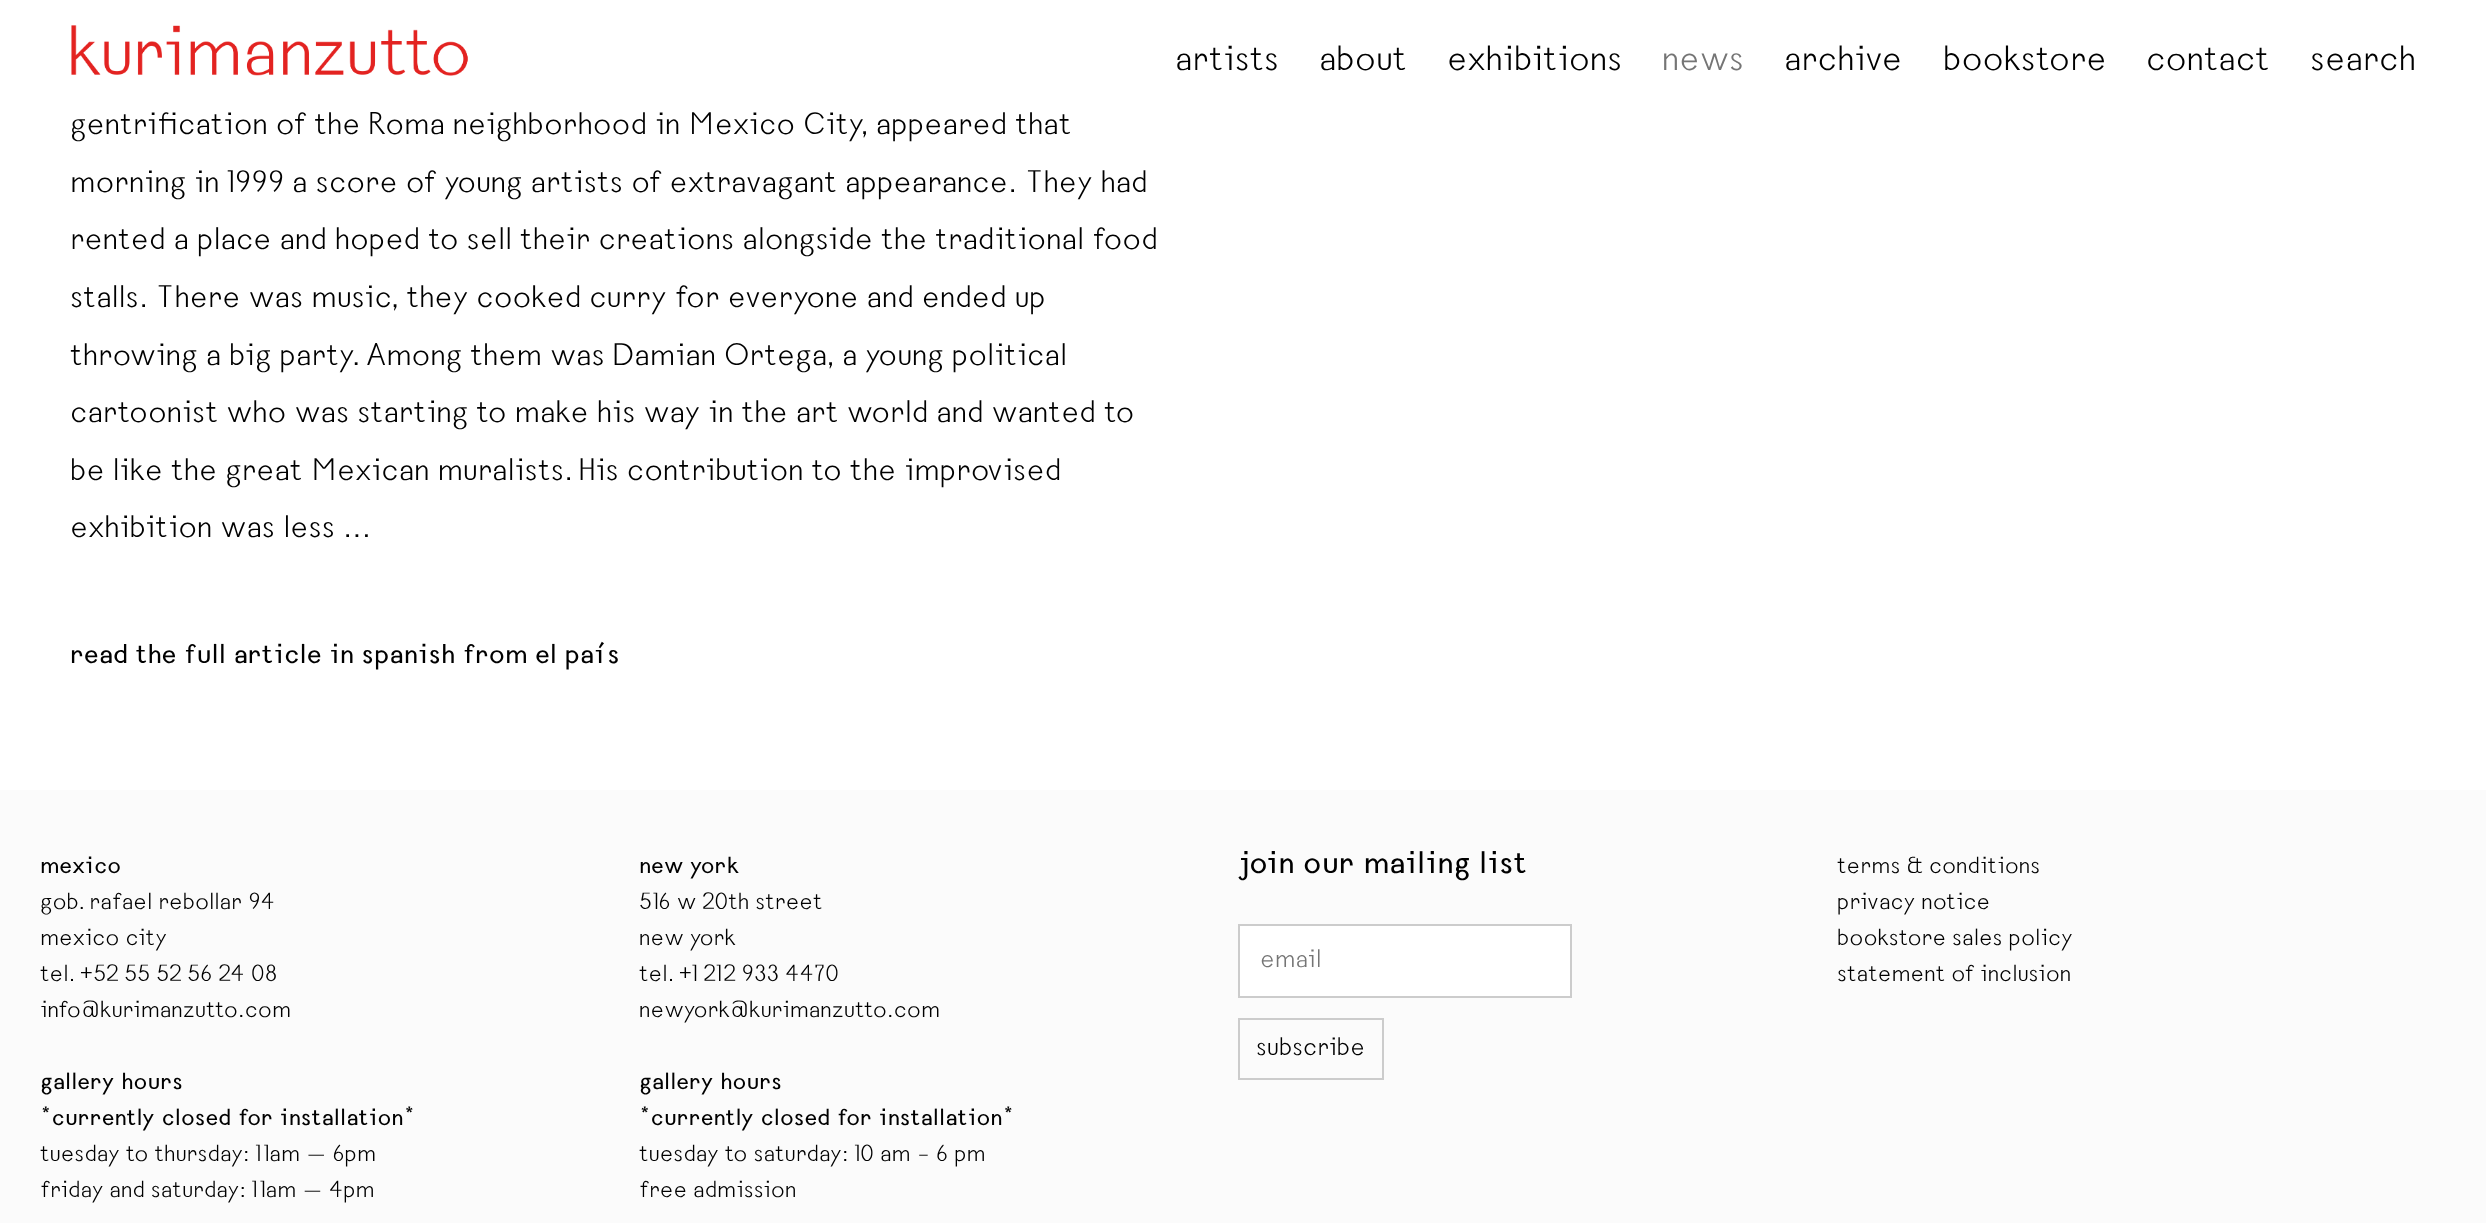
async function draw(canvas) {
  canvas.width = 2486
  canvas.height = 1223
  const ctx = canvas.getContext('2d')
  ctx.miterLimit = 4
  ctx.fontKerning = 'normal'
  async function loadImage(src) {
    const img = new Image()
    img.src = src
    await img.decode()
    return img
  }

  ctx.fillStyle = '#fff'
  ctx.fillRect(0, 0, 2486, 1223)
  ctx.drawImage(await loadImage('image0.png'), 71, 25, 397, 51)
  ctx.font = '36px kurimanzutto'
  ctx.fillStyle = '#000'
  ctx.fillText('artists', 1175, 70)
  ctx.fillText('about', 1319, 70)
  ctx.fillText('exhibitions', 1447, 70)
  ctx.fillStyle = '#757575'
  ctx.fillText('news', 1662, 70)
  ctx.fillStyle = '#000'
  ctx.fillText('archive', 1784, 70)
  ctx.fillText('bookstore', 1943, 70)
  ctx.fillText('contact', 2146, 70)
  ctx.fillText('search', 2310, 70)
  ctx.font = '32px kurimanzutto'
  ctx.fillText('gentrification of the Roma neighborhood in Mexico City, appeared that', 70, 134)
  ctx.fillText('morning in 1999 a score of young artists of extravagant appearance. They had', 70, 192)
  ctx.fillText('rented a place and hoped to sell their creations alongside the traditional food', 70, 249)
  ctx.fillText('stalls. There was music, they cooked curry for everyone and ended up', 70, 307)
  ctx.fillText('throwing a big party. Among them was Damian Ortega, a young political', 70, 365)
  ctx.fillText('cartoonist who was starting to make his way in the art world and wanted to', 70, 422)
  ctx.fillText('be like the great Mexican muralists. His contribution to the improvised', 70, 480)
  ctx.fillText('exhibition was less ...', 70, 537)
  ctx.font = 'bold 28px kurimanzutto'
  ctx.fillText('read the full article in spanish from el país', 70, 663)
  ctx.fillStyle = '#fbfbfb'
  ctx.fillRect(0, 790, 2486, 433)
  ctx.font = 'bold 24px kurimanzutto'
  ctx.fillStyle = '#000'
  ctx.fillText('mexico', 40, 873)
  ctx.font = '24px kurimanzutto'
  ctx.fillText('gob. rafael rebollar 94', 40, 909)
  ctx.fillText('mexico city', 40, 945)
  ctx.fillText('tel. +52 55 52 56 24 08', 40, 981)
  ctx.fillText('info@kurimanzutto.com', 40, 1017)
  ctx.font = 'bold 24px kurimanzutto'
  ctx.fillText('gallery hours', 40, 1089)
  ctx.fillText('*currently closed for installation*', 40, 1125)
  ctx.font = '24px kurimanzutto'
  ctx.fillText('tuesday to thursday: 11am — 6pm', 40, 1161)
  ctx.fillText('friday and saturday: 11am — 4pm', 40, 1197)
  ctx.font = 'bold 24px kurimanzutto'
  ctx.fillText('new york', 639, 873)
  ctx.font = '24px kurimanzutto'
  ctx.fillText('516 w 20th street', 639, 909)
  ctx.fillText('new york', 639, 945)
  ctx.fillText('tel. +1 212 933 4470', 639, 981)
  ctx.fillText('newyork@kurimanzutto.com', 639, 1017)
  ctx.font = 'bold 24px kurimanzutto'
  ctx.fillText('gallery hours', 639, 1089)
  ctx.fillText('*currently closed for installation*', 639, 1125)
  ctx.font = '24px kurimanzutto'
  ctx.fillText('tuesday to saturday: 10 am – 6 pm', 639, 1161)
  ctx.fillText('free admission', 639, 1197)
  ctx.font = 'bold 32px kurimanzutto'
  ctx.fillText('join our mailing list', 1238, 873)
  ctx.fillStyle = '#fff'
  ctx.beginPath()
  ctx.rect(1239, 925, 332, 72)
  ctx.fill()
  ctx.strokeStyle = '#ccc'
  ctx.lineWidth = 2
  ctx.stroke()
  ctx.font = '26px kurimanzutto'
  ctx.fillStyle = '#757575'
  ctx.fillText('email', 1260, 967)
  ctx.strokeRect(1239, 1019, 144, 60)
  ctx.fillStyle = '#000'
  ctx.fillText('subscribe', 1256, 1055)
  ctx.font = '24px kurimanzutto'
  ctx.fillText('terms & conditions', 1837, 873)
  ctx.fillText('privacy notice', 1837, 909)
  ctx.fillText('bookstore sales policy', 1837, 945)
  ctx.fillText('statement of inclusion', 1837, 981)
}

draw(document.querySelector('canvas'))
